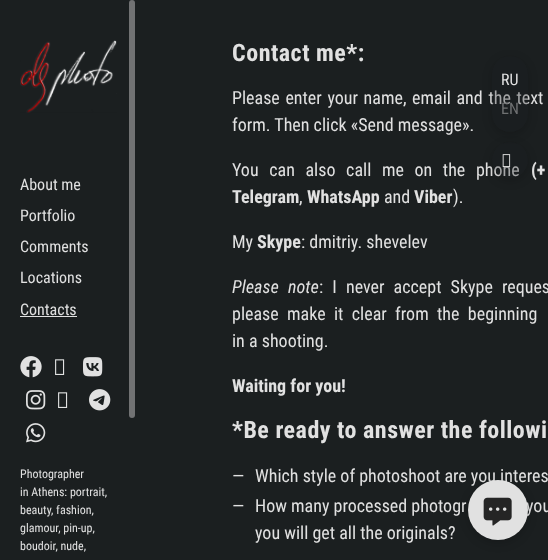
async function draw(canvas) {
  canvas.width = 548
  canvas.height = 560
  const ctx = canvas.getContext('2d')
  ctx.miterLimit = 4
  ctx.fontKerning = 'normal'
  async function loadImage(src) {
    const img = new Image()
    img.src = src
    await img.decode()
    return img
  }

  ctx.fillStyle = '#1b1f20'
  ctx.fillRect(0, 0, 548, 560)
  ctx.drawImage(await loadImage('image0.png'), 20, 40, 97, 73)
  ctx.font = '16px Roboto Condensed'
  ctx.fillStyle = '#e1e1e1'
  ctx.fillText('About me', 20, 190)
  ctx.fillText('Portfolio', 20, 221)
  ctx.fillText('Comments', 20, 252)
  ctx.fillText('Locations', 20, 283)
  ctx.fillText('Contacts', 20, 315)
  ctx.fillRect(20, 316, 57, 1)
  ctx.drawImage(await loadImage('image1.png'), 20, 356, 22, 22)
  ctx.drawImage(await loadImage('image2.png'), 55, 359, 10, 16)
  ctx.drawImage(await loadImage('image3.png'), 83, 357, 20, 20)
  ctx.drawImage(await loadImage('image4.png'), 26, 390, 20, 20)
  ctx.drawImage(await loadImage('image2.png'), 58, 392, 10, 16)
  ctx.drawImage(await loadImage('image5.png'), 89, 389, 22, 22)
  ctx.drawImage(await loadImage('image6.png'), 26, 423, 20, 20)
  ctx.font = '12px Roboto Condensed'
  ctx.fillText('Photographer', 20, 478)
  ctx.fillText('in Athens: portrait,', 20, 496)
  ctx.fillText('beauty, fashion,', 20, 514)
  ctx.fillText('glamour, pin-up,', 20, 532)
  ctx.fillText('boudoir, nude,', 20, 550)
  ctx.fillStyle = '#717273'
  ctx.beginPath()
  ctx.roundRect(129, 0, 6, 418, 3)
  ctx.fill()
  ctx.letterSpacing = '0.5px'
  ctx.font = 'bold 24px Roboto Condensed'
  ctx.fillStyle = '#e1e1e1'
  ctx.fillText('Contact me*:', 232, 61)
  ctx.letterSpacing = '0px'
  ctx.wordSpacing = '1.5px'
  ctx.font = '18px Roboto Condensed'
  ctx.fillText('Please enter your name, email and the text', 232, 104)
  ctx.wordSpacing = '0px'
  ctx.fillText('form. Then click «Send message».', 232, 131)
  ctx.wordSpacing = '6.5px'
  ctx.fillText('You can also call me on the phone', 232, 176)
  ctx.font = 'bold 18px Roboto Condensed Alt'
  ctx.fillText('(+', 531, 176)
  ctx.wordSpacing = '0px'
  ctx.font = 'bold 18px Roboto Condensed'
  ctx.fillText('Telegram', 232, 203)
  ctx.font = '18px Roboto Condensed'
  ctx.fillText(',', 299, 203)
  ctx.font = 'bold 18px Roboto Condensed'
  ctx.fillText('WhatsApp', 307, 203)
  ctx.font = '18px Roboto Condensed'
  ctx.fillText('and', 384, 203)
  ctx.font = 'bold 18px Roboto Condensed'
  ctx.fillText('Viber', 414, 203)
  ctx.font = '18px Roboto Condensed'
  ctx.fillText(').', 453, 203)
  ctx.fillText('My', 232, 248)
  ctx.font = 'bold 18px Roboto Condensed'
  ctx.fillText('Skype', 257, 248)
  ctx.font = '18px Roboto Condensed'
  ctx.fillText(': dmitriy. shevelev', 301, 248)
  ctx.wordSpacing = '5px'
  ctx.font = 'italic 18px Roboto Condensed'
  ctx.fillText('Please note', 232, 293)
  ctx.font = '18px Roboto Condensed'
  ctx.fillText(': I never accept Skype reques', 319, 293)
  ctx.wordSpacing = '4.25px'
  ctx.fillText('please make it clear from the beginning', 232, 320)
  ctx.wordSpacing = '0px'
  ctx.fillText('in a shooting.', 232, 347)
  ctx.font = 'bold 18px Roboto Condensed'
  ctx.fillText('Waiting for you!', 232, 392)
  ctx.letterSpacing = '0.5px'
  ctx.font = 'bold 24px Roboto Condensed'
  ctx.fillText('*Be ready to answer the followi', 232, 438)
  ctx.letterSpacing = '0px'
  ctx.font = '18px Roboto Condensed'
  ctx.fillText('—', 232, 482)
  ctx.fillText('Which style of photoshoot are you interes', 255, 482)
  ctx.fillText('—', 232, 512)
  ctx.fillText('How many processed photogr', 255, 512)
  ctx.fillText('you', 526, 512)
  ctx.fillText('you will get all the originals?', 255, 539)
  ctx.save()
  ctx.beginPath()
  ctx.moveTo(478, 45)
  ctx.lineTo(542, 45)
  ctx.lineTo(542, 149)
  ctx.lineTo(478, 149)
  ctx.closePath()
  ctx.moveTo(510, 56)
  ctx.bezierCurveTo(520, 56, 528, 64, 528, 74)
  ctx.lineTo(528, 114)
  ctx.bezierCurveTo(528, 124, 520, 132, 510, 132)
  ctx.bezierCurveTo(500, 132, 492, 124, 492, 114)
  ctx.lineTo(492, 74)
  ctx.bezierCurveTo(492, 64, 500, 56, 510, 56)
  ctx.closePath()
  ctx.clip('evenodd')
  ctx.fillStyle = '#00000026'
  ctx.filter = 'blur(4px)'
  ctx.beginPath()
  ctx.roundRect(491, 58, 38, 78, 19)
  ctx.fill()
  ctx.filter = 'none'
  ctx.restore()
  ctx.fillStyle = '#1b1f204d'
  ctx.beginPath()
  ctx.roundRect(492, 56, 36, 76, 18)
  ctx.fill()
  ctx.font = '16px Roboto Condensed'
  ctx.fillStyle = '#e1e1e1'
  ctx.fillText('RU', 501, 85)
  ctx.fillStyle = '#6f7172'
  ctx.fillText('EN', 501, 114)
  ctx.save()
  ctx.beginPath()
  ctx.moveTo(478, 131)
  ctx.lineTo(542, 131)
  ctx.lineTo(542, 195)
  ctx.lineTo(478, 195)
  ctx.closePath()
  ctx.moveTo(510, 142)
  ctx.bezierCurveTo(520, 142, 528, 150, 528, 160)
  ctx.bezierCurveTo(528, 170, 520, 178, 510, 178)
  ctx.bezierCurveTo(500, 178, 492, 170, 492, 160)
  ctx.bezierCurveTo(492, 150, 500, 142, 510, 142)
  ctx.closePath()
  ctx.clip('evenodd')
  ctx.fillStyle = '#00000026'
  ctx.filter = 'blur(4px)'
  ctx.beginPath()
  ctx.roundRect(491, 144, 38, 38, 19)
  ctx.fill()
  ctx.filter = 'none'
  ctx.restore()
  ctx.fillStyle = '#1b1f204d'
  ctx.beginPath()
  ctx.arc(510, 160, 18, 0, 2 * Math.PI)
  ctx.fill()
  ctx.drawImage(await loadImage('image7.png'), 502, 154, 9, 13)
  ctx.fillStyle = '#00000026'
  ctx.filter = 'blur(4px)'
  ctx.beginPath()
  ctx.roundRect(467, 482, 62, 62, 31)
  ctx.fill()
  ctx.filter = 'none'
  ctx.fillStyle = '#e1e1e1'
  ctx.beginPath()
  ctx.arc(498, 510, 30, 0, 2 * Math.PI)
  ctx.fill()
  ctx.drawImage(await loadImage('image8.png'), 483, 497, 29, 29)
}

draw(document.querySelector('canvas'))
